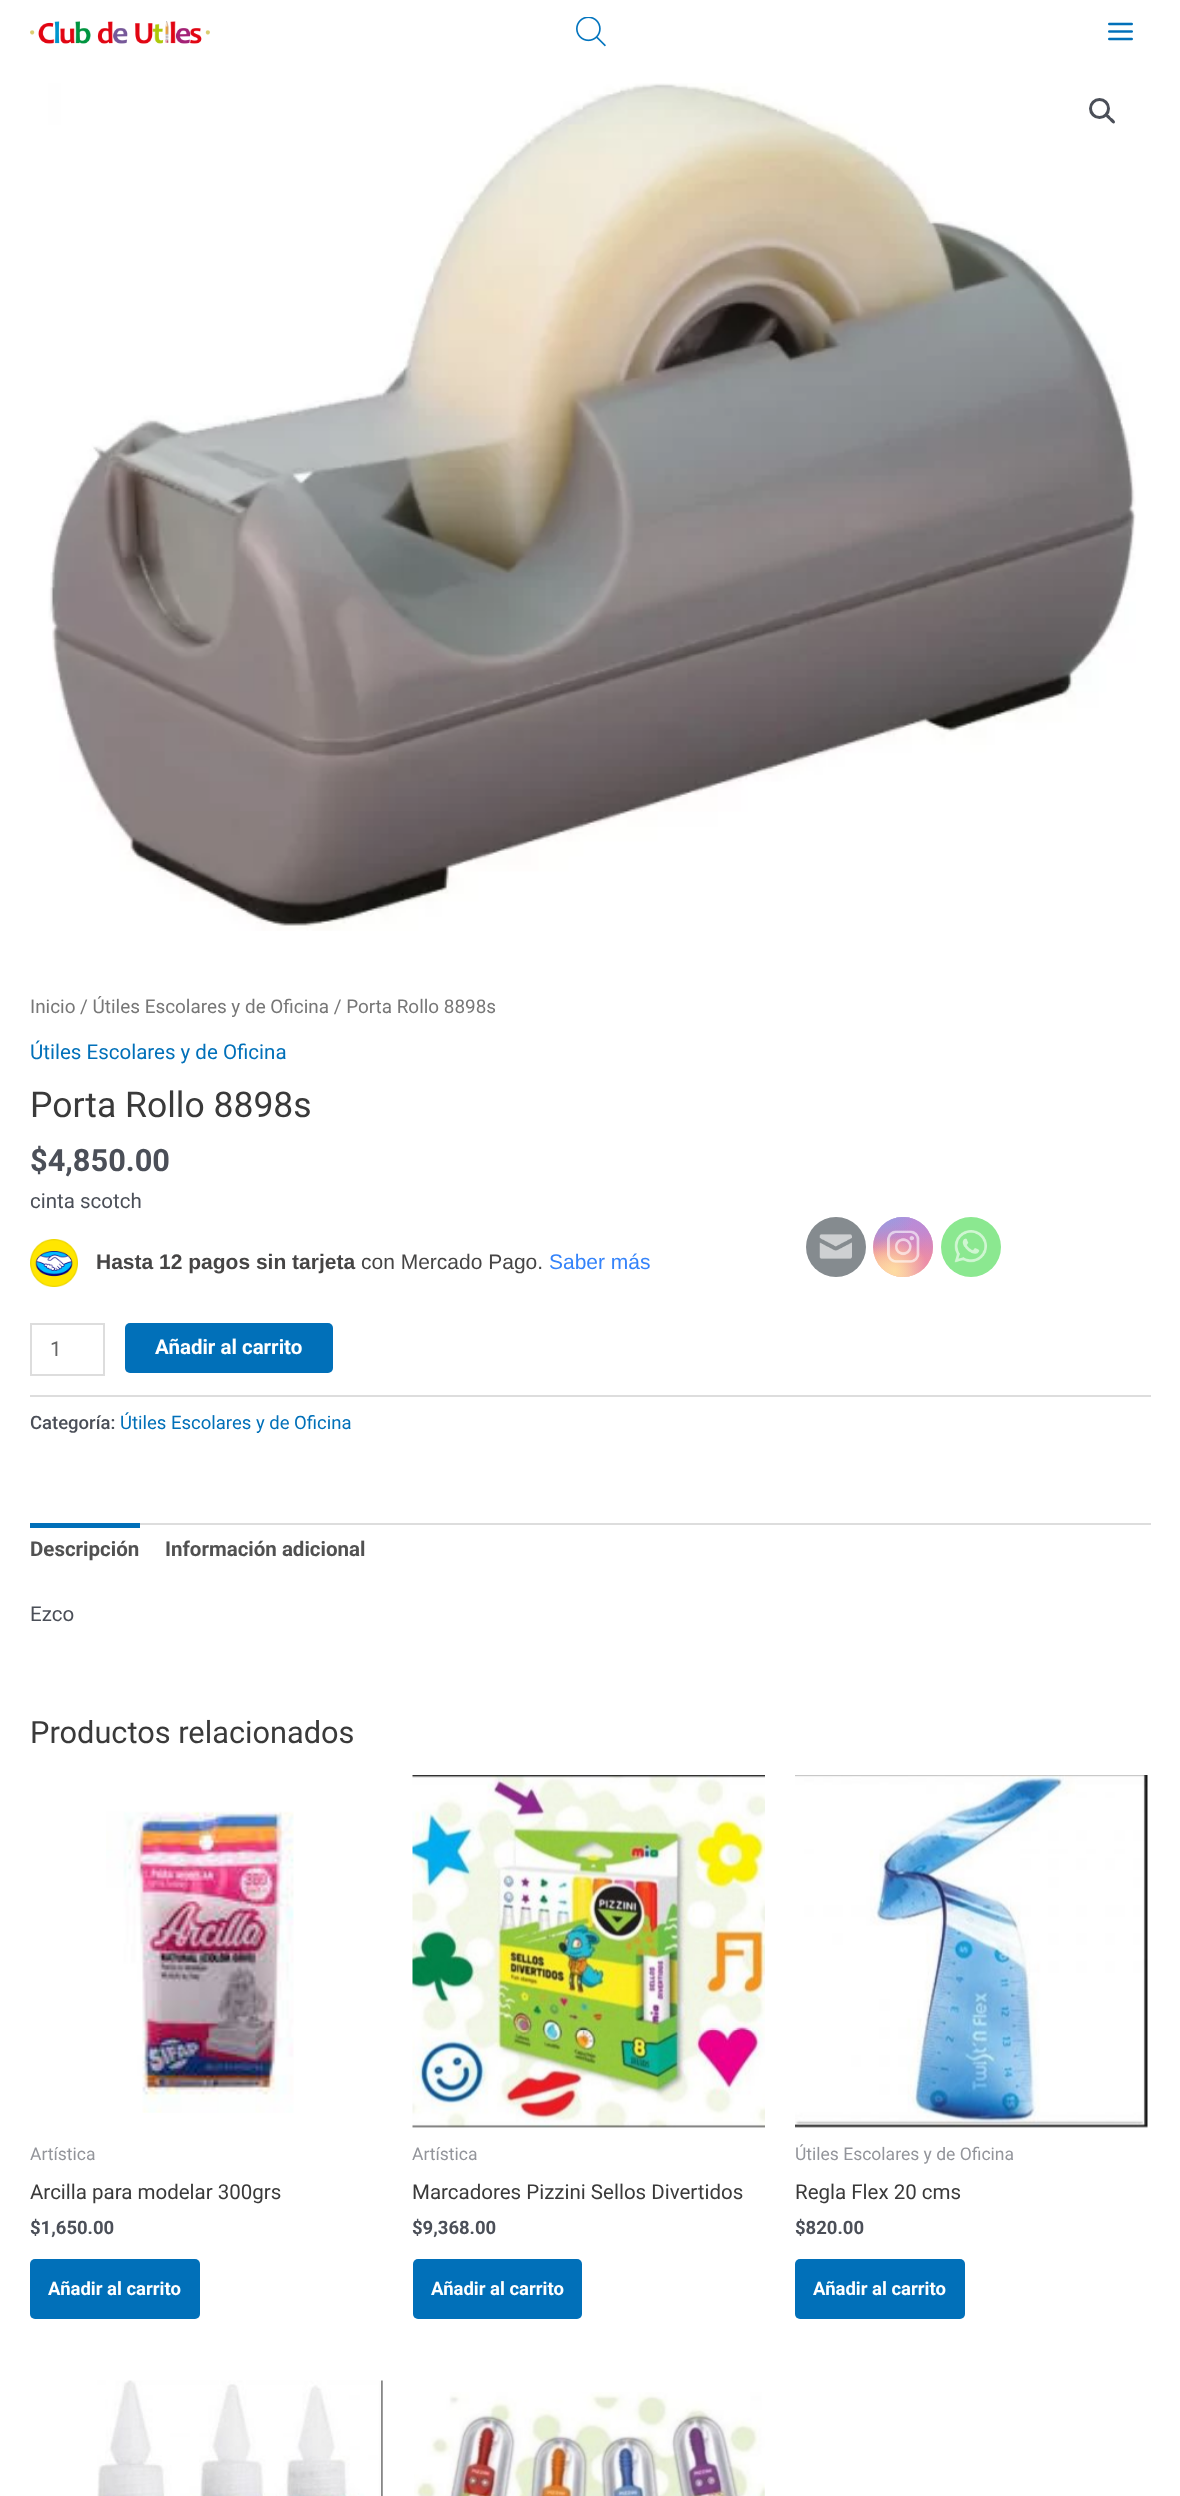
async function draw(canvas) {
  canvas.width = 1180
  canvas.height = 2496
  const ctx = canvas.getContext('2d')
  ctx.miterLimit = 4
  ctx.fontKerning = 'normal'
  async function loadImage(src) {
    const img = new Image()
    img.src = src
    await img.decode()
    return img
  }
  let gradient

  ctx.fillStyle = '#fff'
  ctx.fillRect(0, 0, 1180, 2496)
  ctx.drawImage(await loadImage('image0.png'), 30, 21, 180, 23)
  ctx.drawImage(await loadImage('image1.png'), 576, 17, 30, 30)
  ctx.drawImage(await loadImage('image2.png'), 1108, 22, 25, 19)
  ctx.drawImage(await loadImage('image3.png'), 48, 83, 1088, 848)
  ctx.beginPath()
  ctx.arc(1099.5, 108.5, 9, 0, 2 * Math.PI)
  ctx.strokeStyle = '#4b4f58'
  ctx.lineWidth = 3
  ctx.stroke()
  ctx.fillStyle = '#4b4f58'
  ctx.beginPath()
  ctx.moveTo(1106, 114.5)
  ctx.bezierCurveTo(1108, 113, 1110.5, 117, 1111.5, 118)
  ctx.bezierCurveTo(1112.5, 118.5, 1116.5, 121.5, 1114.5, 123)
  ctx.bezierCurveTo(1113, 125, 1110.5, 121, 1109.5, 120)
  ctx.bezierCurveTo(1108.5, 119, 1104.5, 116.5, 1106, 114.5)
  ctx.closePath()
  ctx.fill()
  ctx.font = '18.9px Roboto'
  ctx.fillStyle = '#777'
  ctx.fillText('Inicio / Útiles Escolares y de Oficina / Porta Rollo 8898s', 30, 1013)
  ctx.font = '20.5px Roboto'
  ctx.fillStyle = '#0170b9'
  ctx.fillText('Útiles Escolares y de Oficina', 30, 1059)
  ctx.font = '35.5px Roboto'
  ctx.fillStyle = '#3a3a3a'
  ctx.fillText('Porta Rollo 8898s', 30, 1117)
  ctx.font = 'bold 30.75px Roboto'
  ctx.fillStyle = '#4b4f58'
  ctx.fillText('$4,850.00', 30, 1171)
  ctx.font = '20.5px Roboto'
  ctx.fillText('cinta scotch', 30, 1208)
  ctx.drawImage(await loadImage('image4.png'), 30, 1239, 48, 48)
  ctx.font = 'bold 21px Liberation Sans'
  ctx.fillStyle = '#464545'
  ctx.fillText('Hasta 12 pagos sin tarjeta', 96, 1269)
  ctx.font = '21px Liberation Sans'
  ctx.fillText('con Mercado Pago.', 361, 1269)
  ctx.fillStyle = '#3483fa'
  ctx.fillText('Saber más', 549, 1269)
  ctx.strokeStyle = '#ddd'
  ctx.lineWidth = 2
  ctx.strokeRect(31, 1324, 73, 51)
  ctx.font = '20.5px Roboto'
  ctx.fillStyle = '#666'
  ctx.fillText('1', 50, 1356)
  ctx.fillStyle = '#0170b9'
  ctx.beginPath()
  ctx.roundRect(125, 1323, 208, 50, 5)
  ctx.fill()
  ctx.font = 'bold 20.5px Roboto'
  ctx.fillStyle = '#fff'
  ctx.fillText('Añadir al carrito', 155, 1354)
  ctx.fillStyle = '#ddd'
  ctx.fillRect(30, 1395, 1121, 2)
  ctx.font = '500 18.5px Roboto'
  ctx.fillStyle = '#4b4f58'
  ctx.fillText('Categoría:', 30, 1429)
  ctx.font = '18.5px Roboto'
  ctx.fillStyle = '#0170b9'
  ctx.fillText('Útiles Escolares y de Oficina', 120, 1429)
  ctx.fillStyle = '#ddd'
  ctx.fillRect(140, 1523, 1011, 2)
  ctx.fillStyle = '#0170b9'
  ctx.fillRect(30, 1523, 110, 5)
  ctx.font = 'bold 20.5px Roboto'
  ctx.fillStyle = '#515151'
  ctx.fillText('Descripción', 30, 1556)
  ctx.fillText('Información adicional', 165, 1556)
  ctx.font = '20.5px Roboto'
  ctx.fillStyle = '#4b4f58'
  ctx.fillText('Ezco', 30, 1621)
  ctx.font = '30.75px Roboto'
  ctx.fillStyle = '#3a3a3a'
  ctx.fillText('Productos relacionados', 30, 1743)
  ctx.drawImage(await loadImage('image5.png'), 106, 1811, 188, 302)
  ctx.font = '17.5px Roboto'
  ctx.fillStyle = '#93959b'
  ctx.fillText('Artística', 30, 2160)
  ctx.font = '20.5px Roboto'
  ctx.fillStyle = '#3a3a3a'
  ctx.fillText('Arcilla para modelar 300grs', 30, 2199)
  ctx.font = 'bold 18.5px Roboto'
  ctx.fillStyle = '#4b4f58'
  ctx.fillText('$1,650.00', 30, 2234)
  ctx.fillStyle = '#0170b9'
  ctx.beginPath()
  ctx.roundRect(30, 2259, 170, 60, 5)
  ctx.fill()
  ctx.fillStyle = '#fff'
  ctx.fillText('Añadir al carrito', 48, 2295)
  ctx.drawImage(await loadImage('image6.png'), 412, 1775, 353, 353)
  ctx.font = '17.5px Roboto'
  ctx.fillStyle = '#93959b'
  ctx.fillText('Artística', 412, 2160)
  ctx.font = '20.5px Roboto'
  ctx.fillStyle = '#3a3a3a'
  ctx.fillText('Marcadores Pizzini Sellos Divertidos', 412, 2199)
  ctx.font = 'bold 18.5px Roboto'
  ctx.fillStyle = '#4b4f58'
  ctx.fillText('$9,368.00', 412, 2234)
  ctx.fillStyle = '#0170b9'
  ctx.beginPath()
  ctx.roundRect(413, 2259, 169, 60, 5)
  ctx.fill()
  ctx.fillStyle = '#fff'
  ctx.fillText('Añadir al carrito', 431, 2295)
  ctx.drawImage(await loadImage('image7.png'), 795, 1775, 353, 353)
  ctx.font = '17.5px Roboto'
  ctx.fillStyle = '#93959b'
  ctx.fillText('Útiles Escolares y de Oficina', 795, 2160)
  ctx.font = '20.5px Roboto'
  ctx.fillStyle = '#3a3a3a'
  ctx.fillText('Regla Flex 20 cms', 795, 2199)
  ctx.font = 'bold 18.5px Roboto'
  ctx.fillStyle = '#4b4f58'
  ctx.fillText('$820.00', 795, 2234)
  ctx.fillStyle = '#0170b9'
  ctx.beginPath()
  ctx.roundRect(795, 2259, 170, 60, 5)
  ctx.fill()
  ctx.fillStyle = '#fff'
  ctx.fillText('Añadir al carrito', 813, 2295)
  ctx.drawImage(await loadImage('image8.png'), 97, 2380, 286, 116)
  ctx.drawImage(await loadImage('image9.png'), 414, 2392, 351, 104)
  ctx.fillStyle = '#858b8f'
  ctx.beginPath()
  ctx.arc(836, 1247, 30, 0, 2 * Math.PI)
  ctx.fill()
  ctx.drawImage(await loadImage('image10.png'), 819, 1234, 33, 25)
  gradient = ctx.createLinearGradient(903, 1217, 903, 1277)
  gradient.addColorStop(0, '#a39bdf')
  gradient.addColorStop(0.3, '#d783bc')
  gradient.addColorStop(0.5, '#ee8c9f')
  gradient.addColorStop(0.7, '#faad88')
  gradient.addColorStop(1, '#fedda7')
  ctx.fillStyle = gradient
  ctx.beginPath()
  ctx.arc(903, 1247, 30, 0, 2 * Math.PI)
  ctx.fill()
  gradient = ctx.createRadialGradient(933, 1277, 0, 933, 1277, 85)
  gradient.addColorStop(0, '#e883af')
  gradient.addColorStop(1, '#e883af00')
  ctx.fillStyle = gradient
  ctx.beginPath()
  ctx.arc(903, 1247, 30, 0, 2 * Math.PI)
  ctx.fill()
  gradient = ctx.createRadialGradient(909, 602.5, 0, 909, 602.5, 51)
  gradient.addColorStop(0, '#b88bda')
  gradient.addColorStop(0.5, '#b88bda00')
  ctx.fillStyle = gradient
  ctx.beginPath()
  ctx.arc(903, 1247, 30, 0, 2 * Math.PI)
  ctx.save()
  ctx.clip()
  ctx.scale(1, 102 / 51)
  ctx.fillRect(0, 0, 1180, 1248)
  ctx.restore()
  gradient = ctx.createRadialGradient(933, 1217, 0, 933, 1217, 85)
  gradient.addColorStop(0, '#b88bda')
  gradient.addColorStop(0.5, '#b88bda00')
  ctx.fillStyle = gradient
  ctx.beginPath()
  ctx.arc(903, 1247, 30, 0, 2 * Math.PI)
  ctx.fill()
  gradient = ctx.createRadialGradient(885, 635.56, 0, 885, 635.56, 68)
  gradient.addColorStop(0, '#979be2')
  gradient.addColorStop(0.5, '#979be200')
  ctx.fillStyle = gradient
  ctx.beginPath()
  ctx.arc(903, 1247, 30, 0, 2 * Math.PI)
  ctx.save()
  ctx.clip()
  ctx.scale(1, 127 / 68)
  ctx.fillRect(0, 0, 1180, 1337)
  ctx.restore()
  gradient = ctx.createRadialGradient(873, 963.87, 0, 873, 963.87, 85)
  gradient.addColorStop(0, '#979be2')
  gradient.addColorStop(0.5, '#979be200')
  ctx.fillStyle = gradient
  ctx.beginPath()
  ctx.arc(903, 1247, 30, 0, 2 * Math.PI)
  ctx.save()
  ctx.clip()
  ctx.scale(1, 106 / 85)
  ctx.fillRect(0, 0, 1180, 2002)
  ctx.restore()
  gradient = ctx.createRadialGradient(873, 1301, 0, 873, 1301, 103)
  gradient.addColorStop(0, '#fedca2')
  gradient.addColorStop(0.5, '#fedca200')
  ctx.fillStyle = gradient
  ctx.beginPath()
  ctx.arc(903, 1247, 30, 0, 2 * Math.PI)
  ctx.fill()
  gradient = ctx.createRadialGradient(894, 1271, 0, 894, 1271, 67)
  gradient.addColorStop(0, '#fedca2')
  gradient.addColorStop(0.5, '#fedca200')
  ctx.fillStyle = gradient
  ctx.beginPath()
  ctx.arc(903, 1247, 30, 0, 2 * Math.PI)
  ctx.fill()
  ctx.drawImage(await loadImage('image11.png'), 887, 1230, 33, 33)
  ctx.fillStyle = '#8be890'
  ctx.beginPath()
  ctx.arc(971, 1247, 30, 0, 2 * Math.PI)
  ctx.fill()
  ctx.drawImage(await loadImage('image12.png'), 954, 1230, 33, 33)
}

draw(document.querySelector('canvas'))
